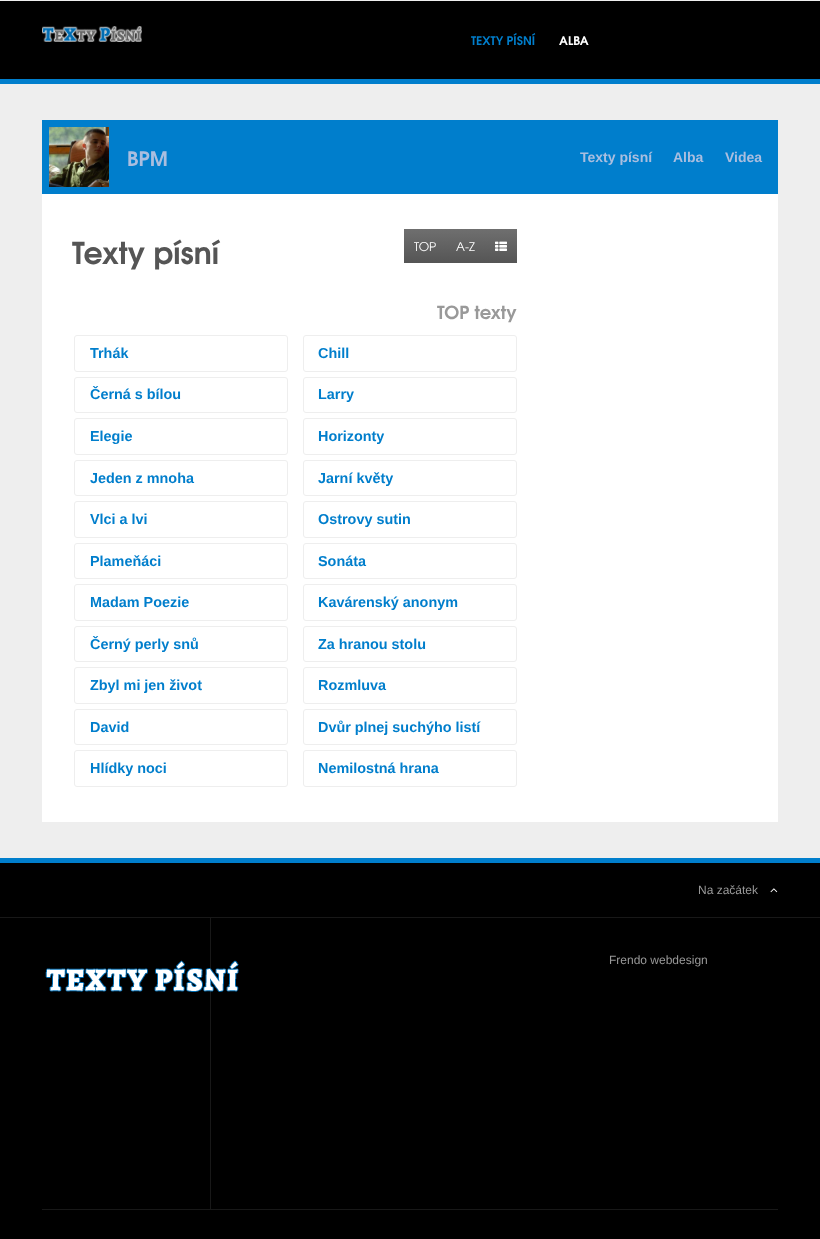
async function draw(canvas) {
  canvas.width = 820
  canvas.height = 1239
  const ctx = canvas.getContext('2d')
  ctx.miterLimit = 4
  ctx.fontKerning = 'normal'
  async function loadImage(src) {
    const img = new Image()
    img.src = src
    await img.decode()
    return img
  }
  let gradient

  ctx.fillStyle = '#eee'
  ctx.fillRect(0, 0, 820, 1239)
  ctx.fillStyle = '#000'
  ctx.fillRect(0, 1, 820, 78)
  ctx.fillStyle = '#007ecc'
  ctx.fillRect(0, 79, 820, 5)
  ctx.drawImage(await loadImage('image0.png'), 42, 26, 100, 16)
  ctx.font = 'bold 12px TeX Gyre Adventor'
  ctx.fillText('TEXTY PÍSNÍ', 471, 45)
  ctx.fillStyle = '#fff'
  ctx.fillText('ALBA', 559, 45)
  ctx.fillRect(42, 194, 736, 628)
  ctx.fillStyle = '#007ecc'
  ctx.fillRect(42, 120, 736, 74)
  ctx.drawImage(await loadImage('image1.png'), 49, 127, 60, 60)
  ctx.font = 'bold 20px TeX Gyre Adventor'
  ctx.fillStyle = '#aabedf'
  ctx.fillText('BPM', 127, 166)
  ctx.font = 'bold 14px Liberation Sans'
  ctx.fillText('Texty písní', 580, 162)
  ctx.fillText('Alba', 673, 162)
  ctx.fillText('Videa', 725, 162)
  ctx.font = 'bold 30px TeX Gyre Adventor'
  ctx.fillStyle = '#555'
  ctx.fillText('Texty písní', 72, 264)
  gradient = ctx.createLinearGradient(425, 229, 425, 263)
  gradient.addColorStop(0, '#6f6f6f')
  gradient.addColorStop(1, '#555')
  ctx.fillStyle = gradient
  ctx.fillRect(404, 229, 42, 34)
  ctx.font = '12px TeX Gyre Adventor'
  ctx.fillStyle = '#fff'
  ctx.fillText('TOP', 414, 251)
  gradient = ctx.createLinearGradient(466, 229, 466, 263)
  gradient.addColorStop(0, '#6f6f6f')
  gradient.addColorStop(1, '#555')
  ctx.fillStyle = gradient
  ctx.fillRect(446, 229, 39, 34)
  ctx.fillStyle = '#fff'
  ctx.fillText('A-Z', 456, 251)
  gradient = ctx.createLinearGradient(501, 229, 501, 263)
  gradient.addColorStop(0, '#6f6f6f')
  gradient.addColorStop(1, '#555')
  ctx.fillStyle = gradient
  ctx.fillRect(485, 229, 32, 34)
  ctx.drawImage(await loadImage('image2.png'), 495, 241, 12, 10)
  ctx.font = 'bold 18px TeX Gyre Adventor'
  ctx.fillStyle = '#999'
  ctx.fillText('TOP texty', 437, 319)
  ctx.beginPath()
  ctx.roundRect(74.5, 335.5, 213, 36, 2.5)
  ctx.strokeStyle = '#eee'
  ctx.stroke()
  ctx.font = 'bold 14.4px Liberation Sans'
  ctx.fillStyle = '#007ecc'
  ctx.fillText('Trhák', 90, 358)
  ctx.beginPath()
  ctx.roundRect(303.5, 335.5, 213, 36, 2.5)
  ctx.stroke()
  ctx.fillText('Chill', 318, 358)
  ctx.beginPath()
  ctx.roundRect(74.5, 377.5, 213, 35, 2.5)
  ctx.stroke()
  ctx.fillText('Černá s bílou', 90, 399)
  ctx.beginPath()
  ctx.roundRect(303.5, 377.5, 213, 35, 2.5)
  ctx.stroke()
  ctx.fillText('Larry', 318, 399)
  ctx.beginPath()
  ctx.roundRect(74.5, 418.5, 213, 36, 2.5)
  ctx.stroke()
  ctx.fillText('Elegie', 90, 441)
  ctx.beginPath()
  ctx.roundRect(303.5, 418.5, 213, 36, 2.5)
  ctx.stroke()
  ctx.fillText('Horizonty', 318, 441)
  ctx.beginPath()
  ctx.roundRect(74.5, 460.5, 213, 35, 2.5)
  ctx.stroke()
  ctx.fillText('Jeden z mnoha', 90, 483)
  ctx.beginPath()
  ctx.roundRect(303.5, 460.5, 213, 35, 2.5)
  ctx.stroke()
  ctx.fillText('Jarní květy', 318, 483)
  ctx.beginPath()
  ctx.roundRect(74.5, 501.5, 213, 36, 2.5)
  ctx.stroke()
  ctx.fillText('Vlci a lvi', 90, 524)
  ctx.beginPath()
  ctx.roundRect(303.5, 501.5, 213, 36, 2.5)
  ctx.stroke()
  ctx.fillText('Ostrovy sutin', 318, 524)
  ctx.beginPath()
  ctx.roundRect(74.5, 543.5, 213, 35, 2.5)
  ctx.stroke()
  ctx.fillText('Plameňáci', 90, 566)
  ctx.beginPath()
  ctx.roundRect(303.5, 543.5, 213, 35, 2.5)
  ctx.stroke()
  ctx.fillText('Sonáta', 318, 566)
  ctx.beginPath()
  ctx.roundRect(74.5, 584.5, 213, 36, 2.5)
  ctx.stroke()
  ctx.fillText('Madam Poezie', 90, 607)
  ctx.beginPath()
  ctx.roundRect(303.5, 584.5, 213, 36, 2.5)
  ctx.stroke()
  ctx.fillText('Kavárenský anonym', 318, 607)
  ctx.beginPath()
  ctx.roundRect(74.5, 626.5, 213, 35, 2.5)
  ctx.stroke()
  ctx.fillText('Černý perly snů', 90, 649)
  ctx.beginPath()
  ctx.roundRect(303.5, 626.5, 213, 35, 2.5)
  ctx.stroke()
  ctx.fillText('Za hranou stolu', 318, 649)
  ctx.beginPath()
  ctx.roundRect(74.5, 667.5, 213, 36, 2.5)
  ctx.stroke()
  ctx.fillText('Zbyl mi jen život', 90, 690)
  ctx.beginPath()
  ctx.roundRect(303.5, 667.5, 213, 36, 2.5)
  ctx.stroke()
  ctx.fillText('Rozmluva', 318, 690)
  ctx.beginPath()
  ctx.roundRect(74.5, 709.5, 213, 35, 2.5)
  ctx.stroke()
  ctx.fillText('David', 90, 732)
  ctx.beginPath()
  ctx.roundRect(303.5, 709.5, 213, 35, 2.5)
  ctx.stroke()
  ctx.fillText('Dvůr plnej suchýho listí', 318, 732)
  ctx.beginPath()
  ctx.roundRect(74.5, 750.5, 213, 36, 2.5)
  ctx.stroke()
  ctx.fillText('Hlídky noci', 90, 773)
  ctx.beginPath()
  ctx.roundRect(303.5, 750.5, 213, 36, 2.5)
  ctx.stroke()
  ctx.fillText('Nemilostná hrana', 318, 773)
  ctx.fillStyle = '#000'
  ctx.fillRect(0, 863, 820, 54)
  ctx.fillStyle = '#007ecc'
  ctx.fillRect(0, 858, 820, 5)
  ctx.fillStyle = '#181818'
  ctx.fillRect(0, 917, 820, 1)
  ctx.font = '12px Liberation Sans'
  ctx.fillStyle = '#999'
  ctx.fillText('Na začátek', 698, 894)
  ctx.drawImage(await loadImage('image3.png'), 770, 888, 8, 5)
  ctx.fillStyle = '#000'
  ctx.fillRect(0, 918, 820, 321)
  ctx.fillStyle = '#181818'
  ctx.fillRect(210, 918, 1, 291)
  ctx.drawImage(await loadImage('image4.png'), 45, 960, 194, 32)
  ctx.fillStyle = '#999'
  ctx.fillText('Frendo webdesign', 609, 964)
  ctx.fillStyle = '#181818'
  ctx.fillRect(42, 1209, 736, 1)
}

draw(document.querySelector('canvas'))
